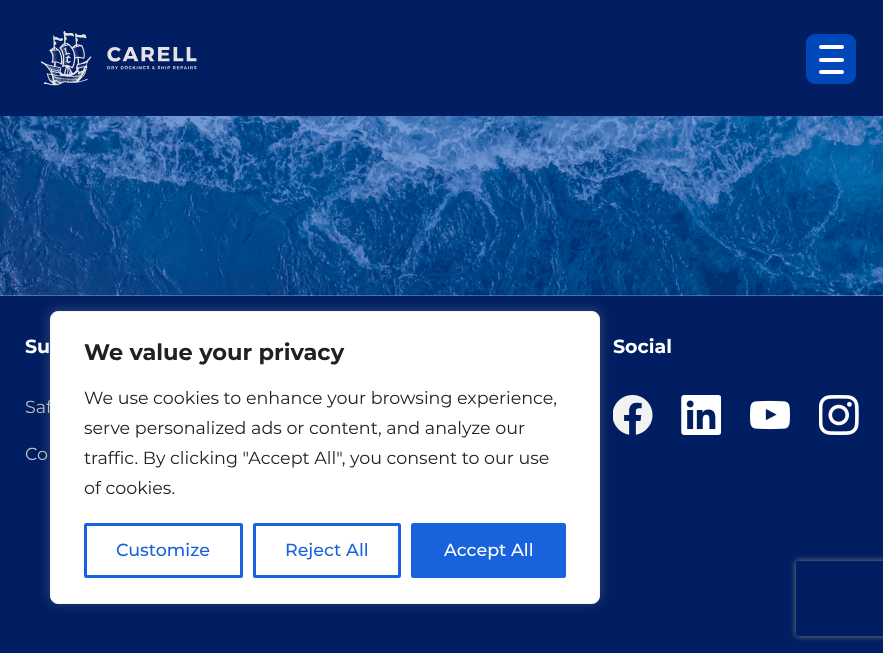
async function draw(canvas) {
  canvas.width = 883
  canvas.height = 653
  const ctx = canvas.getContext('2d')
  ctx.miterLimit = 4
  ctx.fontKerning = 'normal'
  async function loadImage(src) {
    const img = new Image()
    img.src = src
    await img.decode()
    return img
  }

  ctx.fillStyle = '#fff'
  ctx.fillRect(0, 0, 883, 653)
  ctx.fillStyle = '#001e61'
  ctx.fillRect(0, 0, 883, 116)
  ctx.drawImage(await loadImage('image0.png'), 41, 31, 156, 55)
  ctx.fillStyle = '#0047ba'
  ctx.beginPath()
  ctx.roundRect(806, 34, 50, 50, 9)
  ctx.fill()
  ctx.fillStyle = '#fff'
  ctx.beginPath()
  ctx.roundRect(819, 58, 25, 4, 2)
  ctx.fill()
  ctx.beginPath()
  ctx.roundRect(819, 45, 25, 4, 2)
  ctx.fill()
  ctx.beginPath()
  ctx.roundRect(819, 70, 25, 4, 2)
  ctx.fill()
  ctx.drawImage(await loadImage('image1.png'), 0, 116, 883, 180)
  ctx.fillStyle = '#001e61'
  ctx.fillRect(0, 296, 883, 357)
  ctx.font = 'bold 19px Montserrat'
  ctx.fillStyle = '#fff'
  ctx.fillText('Su', 25, 353)
  ctx.font = '17.5px Montserrat'
  ctx.fillStyle = '#bfbfbf'
  ctx.fillText('Saf', 25, 413)
  ctx.fillText('Co', 25, 460)
  ctx.font = 'bold 19px Montserrat'
  ctx.fillStyle = '#fff'
  ctx.fillText('Social', 613, 353)
  ctx.drawImage(await loadImage('image2.png'), 613, 395, 40, 40)
  ctx.drawImage(await loadImage('image3.png'), 681, 395, 40, 40)
  ctx.drawImage(await loadImage('image4.png'), 750, 400, 40, 30)
  ctx.drawImage(await loadImage('image5.png'), 819, 395, 40, 40)
  ctx.fillStyle = '#acabab4d'
  ctx.filter = 'blur(6px)'
  ctx.beginPath()
  ctx.roundRect(50, 310, 550, 293, 8)
  ctx.fill()
  ctx.filter = 'none'
  ctx.fillStyle = '#fff'
  ctx.beginPath()
  ctx.roundRect(50.5, 311.5, 549, 292, 7.5)
  ctx.fill()
  ctx.strokeStyle = '#f4f4f4'
  ctx.stroke()
  ctx.font = 'bold 22.5px Montserrat'
  ctx.fillStyle = '#212121'
  ctx.fillText('We value your privacy', 84, 360)
  ctx.font = '17.5px Montserrat'
  ctx.fillText('We use cookies to enhance your browsing experience,', 84, 404)
  ctx.fillText('serve personalized ads or content, and analyze our', 84, 434)
  ctx.fillText('traffic. By clicking "Accept All", you consent to our use', 84, 464)
  ctx.fillText('of cookies.', 84, 494)
  ctx.beginPath()
  ctx.roundRect(85.5, 524.5, 156, 52, 1)
  ctx.strokeStyle = '#1863dc'
  ctx.lineWidth = 3
  ctx.stroke()
  ctx.font = '500 17.5px Montserrat'
  ctx.fillStyle = '#1863dc'
  ctx.fillText('Customize', 116, 556)
  ctx.beginPath()
  ctx.roundRect(254.5, 524.5, 145, 52, 1)
  ctx.stroke()
  ctx.fillText('Reject All', 285, 556)
  ctx.beginPath()
  ctx.roundRect(412.5, 524.5, 152, 52, 1)
  ctx.fill()
  ctx.stroke()
  ctx.fillStyle = '#fff'
  ctx.fillText('Accept All', 444, 556)
  ctx.save()
  ctx.beginPath()
  ctx.moveTo(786, 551)
  ctx.lineTo(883, 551)
  ctx.lineTo(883, 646)
  ctx.lineTo(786, 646)
  ctx.closePath()
  ctx.moveTo(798.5, 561)
  ctx.lineTo(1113.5, 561)
  ctx.bezierCurveTo(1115, 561, 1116, 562, 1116, 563.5)
  ctx.lineTo(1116, 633.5)
  ctx.bezierCurveTo(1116, 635, 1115, 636, 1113.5, 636)
  ctx.lineTo(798.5, 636)
  ctx.bezierCurveTo(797, 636, 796, 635, 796, 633.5)
  ctx.lineTo(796, 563.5)
  ctx.bezierCurveTo(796, 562, 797, 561, 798.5, 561)
  ctx.closePath()
  ctx.clip('evenodd')
  ctx.fillStyle = '#808080'
  ctx.filter = 'blur(3px)'
  ctx.beginPath()
  ctx.roundRect(796, 561, 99, 75, 2.5)
  ctx.fill()
  ctx.filter = 'none'
  ctx.restore()
}

draw(document.querySelector('canvas'))
